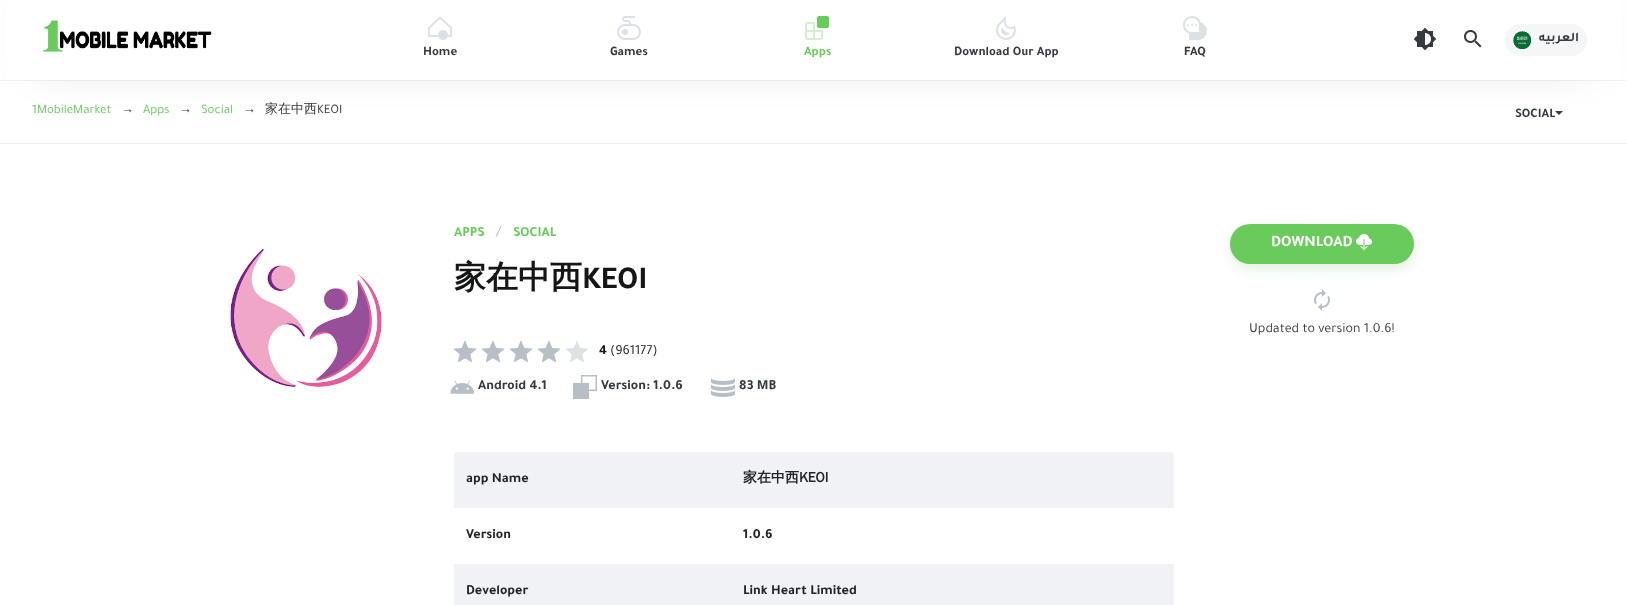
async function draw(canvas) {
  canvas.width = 1627
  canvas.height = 605
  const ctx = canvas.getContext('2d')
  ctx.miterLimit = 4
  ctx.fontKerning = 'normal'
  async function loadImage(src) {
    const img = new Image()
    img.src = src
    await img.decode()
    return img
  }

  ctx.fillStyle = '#fff'
  ctx.fillRect(0, 0, 1627, 605)
  ctx.fillStyle = '#f2f2f2'
  ctx.fillRect(0, 80, 1627, 1)
  ctx.fillStyle = '#343a40'
  ctx.beginPath()
  ctx.moveTo(1555, 111)
  ctx.lineTo(1563, 111)
  ctx.lineTo(1559, 115)
  ctx.closePath()
  ctx.fill()
  ctx.fillStyle = '#0000001f'
  ctx.filter = 'blur(20px)'
  ctx.beginPath()
  ctx.rect(33, 0, 1561, 67)
  ctx.fill()
  ctx.filter = 'none'
  ctx.fillStyle = '#fff'
  ctx.fillRect(6, 0, 1615, 80)
  ctx.drawImage(await loadImage('image0.png'), 43, 20, 169, 32)
  ctx.drawImage(await loadImage('image1.png'), 1413, 27, 24, 24)
  ctx.drawImage(await loadImage('image2.png'), 1464, 30, 18, 18)
  ctx.fillStyle = '#f5f6f7'
  ctx.beginPath()
  ctx.roundRect(1505, 24, 82, 32, 16)
  ctx.fill()
  ctx.drawImage(await loadImage('image3.png'), 1513, 31, 18, 18)
  ctx.direction = 'rtl'
  ctx.font = 'bold 13px Tajawal'
  ctx.fillStyle = '#343a40'
  ctx.fillText('العربيه', 1579, 41)
  ctx.drawImage(await loadImage('image4.png'), 428, 16, 24, 24)
  ctx.direction = 'ltr'
  ctx.fillText('Home', 423, 55)
  ctx.drawImage(await loadImage('image5.png'), 617, 16, 24, 24)
  ctx.fillText('Games', 610, 55)
  ctx.drawImage(await loadImage('image6.png'), 805, 16, 24, 24)
  ctx.fillStyle = '#68cb5b'
  ctx.fillText('Apps', 804, 55)
  ctx.drawImage(await loadImage('image7.png'), 996, 16, 20, 24)
  ctx.fillStyle = '#343a40'
  ctx.fillText('Download Our App', 954, 55)
  ctx.drawImage(await loadImage('image8.png'), 1183, 16, 24, 24)
  ctx.fillText('FAQ', 1184, 55)
  ctx.fillStyle = '#edeff1'
  ctx.fillRect(0, 143, 1627, 1)
  ctx.font = '13px Tajawal'
  ctx.fillStyle = '#68cb5b'
  ctx.fillText('1MobileMarket', 32, 113)
  ctx.font = '13px Liberation Serif'
  ctx.fillStyle = '#343a40'
  ctx.fillText('→', 121, 113)
  ctx.font = '13px Tajawal'
  ctx.fillStyle = '#68cb5b'
  ctx.fillText('Apps', 143, 113)
  ctx.font = '13px Liberation Serif'
  ctx.fillStyle = '#343a40'
  ctx.fillText('→', 179, 113)
  ctx.font = '13px Tajawal'
  ctx.fillStyle = '#68cb5b'
  ctx.fillText('Social', 201, 113)
  ctx.font = '13px Liberation Serif'
  ctx.fillStyle = '#343a40'
  ctx.fillText('→', 243, 113)
  ctx.font = '500 13px WenQuanYi Zen Hei'
  ctx.fillText('家在中西', 265, 113)
  ctx.font = '13px Tajawal'
  ctx.fillText('KEOI', 317, 113)
  ctx.font = 'bold 13px Tajawal'
  ctx.fillText('SOCIAL', 1515, 117)
  ctx.font = 'bold 14px Tajawal'
  ctx.fillStyle = '#68cb5b'
  ctx.fillText('APPS', 454, 236)
  ctx.font = '16px Tajawal'
  ctx.fillStyle = '#b9b9b9'
  ctx.fillText('/', 496, 236)
  ctx.font = 'bold 14px Tajawal'
  ctx.fillStyle = '#68cb5b'
  ctx.fillText('SOCIAL', 513, 236)
  ctx.drawImage(await loadImage('image9.png'), 230, 248, 152, 139)
  ctx.fillStyle = '#5cb9502b'
  ctx.filter = 'blur(6px)'
  ctx.beginPath()
  ctx.roundRect(1230, 230, 184, 40, 20)
  ctx.fill()
  ctx.filter = 'none'
  ctx.fillStyle = '#68cb5b'
  ctx.beginPath()
  ctx.roundRect(1230, 224, 184, 40, 20)
  ctx.fill()
  ctx.font = 'bold 16px Tajawal'
  ctx.fillStyle = '#fff'
  ctx.fillText('DOWNLOAD', 1271, 246)
  ctx.drawImage(await loadImage('image10.png'), 1356, 234, 16, 16)
  ctx.drawImage(await loadImage('image11.png'), 1314, 289, 16, 22)
  ctx.font = '14px Tajawal'
  ctx.fillStyle = '#343a40'
  ctx.fillText('Updated to version 1.0.6!', 1249, 332)
  ctx.drawImage(await loadImage('image12.png'), 450, 380, 24, 14)
  ctx.font = 'bold 14px Tajawal'
  ctx.fillText('Android 4.1', 478, 389)
  ctx.drawImage(await loadImage('image13.png'), 573, 375, 24, 24)
  ctx.fillText('Version: 1.0.6', 601, 389)
  ctx.drawImage(await loadImage('image14.png'), 711, 378, 24, 19)
  ctx.fillText('83 MB', 739, 389)
  ctx.font = 'bold 32px WenQuanYi Zen Hei'
  ctx.fillStyle = '#151617'
  ctx.fillText('家在中西', 454, 288)
  ctx.font = 'bold 32px Tajawal'
  ctx.fillText('KEOI', 582, 288)
  ctx.drawImage(await loadImage('image15.png'), 453, 341, 136, 21)
  ctx.drawImage(await loadImage('image16.png'), 453, 340, 108, 23)
  ctx.font = 'bold 14px Tajawal'
  ctx.fillText('4', 599, 354)
  ctx.font = '14px Tajawal'
  ctx.fillText('(961177)', 610, 354)
  ctx.fillStyle = '#f1f2f5'
  ctx.beginPath()
  ctx.roundRect(454, 452, 720, 56, [4, 4, 0, 0])
  ctx.fill()
  ctx.font = 'bold 14px Tajawal'
  ctx.fillStyle = '#212529'
  ctx.fillText('app Name', 466, 482)
  ctx.font = 'bold 14px WenQuanYi Zen Hei'
  ctx.fillText('家在中西KEOI', 743, 482)
  ctx.font = 'bold 14px Tajawal'
  ctx.fillText('Version', 466, 538)
  ctx.fillText('1.0.6', 743, 538)
  ctx.fillStyle = '#f1f2f5'
  ctx.fillRect(454, 564, 720, 41)
  ctx.fillStyle = '#212529'
  ctx.fillText('Developer', 466, 594)
  ctx.fillText('Link Heart Limited', 743, 594)
}

draw(document.querySelector('canvas'))
